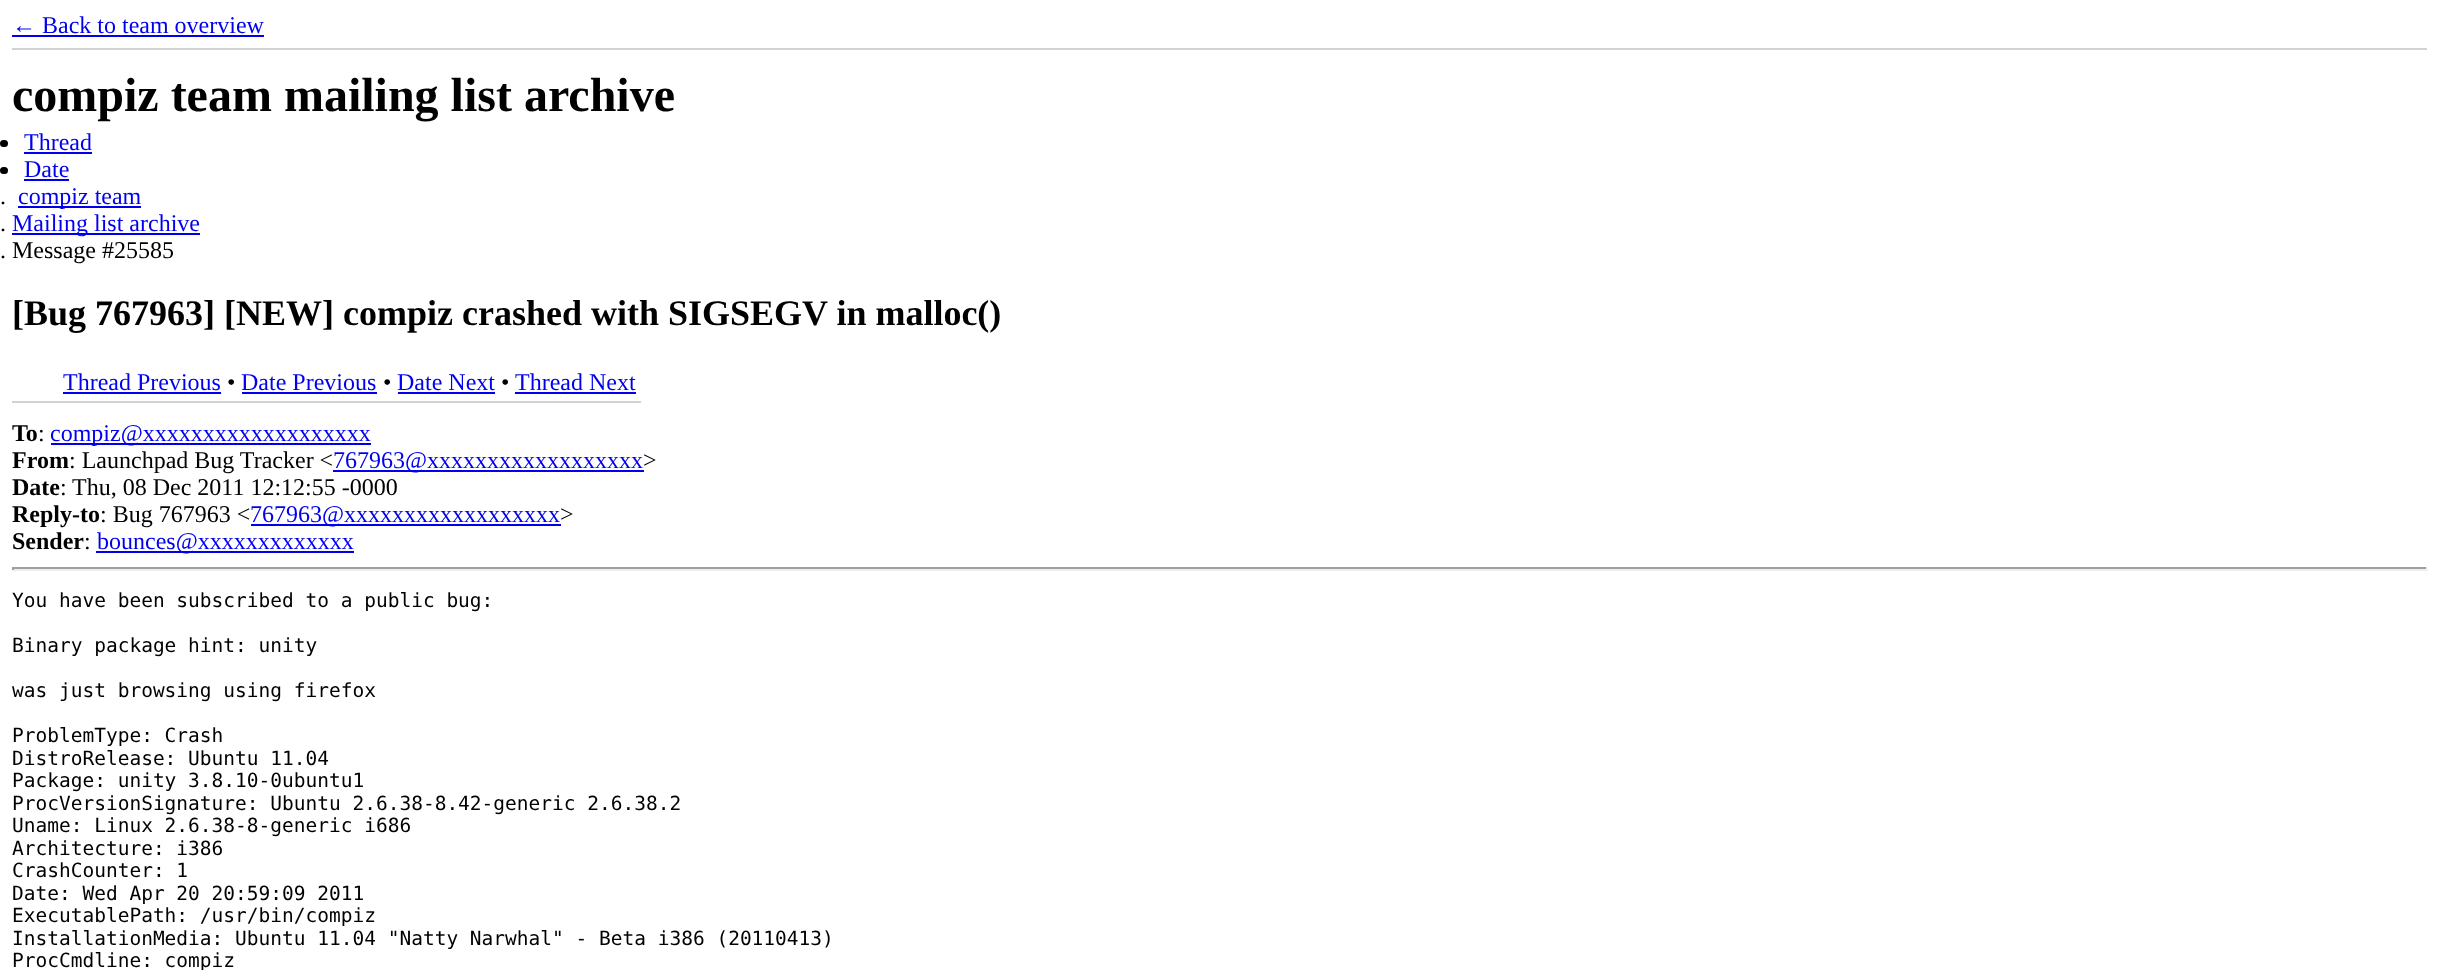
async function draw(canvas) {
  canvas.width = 2438
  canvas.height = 970
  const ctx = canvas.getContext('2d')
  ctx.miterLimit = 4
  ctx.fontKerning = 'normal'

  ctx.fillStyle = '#fff'
  ctx.fillRect(0, 0, 2438, 970)
  ctx.fillStyle = '#d2d2d2'
  ctx.fillRect(12, 48, 2415, 2)
  ctx.font = '24px Liberation Serif'
  ctx.fillStyle = '#00e'
  ctx.fillText('← Back to team overview', 12, 33)
  ctx.fillRect(12, 35, 252, 2)
  ctx.font = 'bold 48px Liberation Serif'
  ctx.fillStyle = '#000'
  ctx.fillText('compiz team mailing list archive', 12, 111)
  ctx.beginPath()
  ctx.roundRect(0, 140, 8, 7, 3.5)
  ctx.fill()
  ctx.font = '24px Liberation Serif'
  ctx.fillStyle = '#00e'
  ctx.fillText('Thread', 24, 150)
  ctx.fillRect(24, 152, 68, 2)
  ctx.fillStyle = '#000'
  ctx.beginPath()
  ctx.roundRect(0, 167, 8, 7, 3.5)
  ctx.fill()
  ctx.fillStyle = '#00e'
  ctx.fillText('Date', 24, 177)
  ctx.fillRect(24, 179, 45, 2)
  ctx.fillStyle = '#000'
  ctx.fillText('.', 0, 204)
  ctx.fillStyle = '#00e'
  ctx.fillRect(18, 206, 123, 2)
  ctx.fillText('compiz team', 18, 204)
  ctx.fillStyle = '#000'
  ctx.fillText('.', 0, 231)
  ctx.fillStyle = '#00e'
  ctx.fillRect(12, 233, 188, 2)
  ctx.fillText('Mailing list archive', 12, 231)
  ctx.fillStyle = '#000'
  ctx.fillText('. Message #25585', 0, 258)
  ctx.font = 'bold 36px Liberation Serif'
  ctx.fillText('[Bug 767963] [NEW] compiz crashed with SIGSEGV in malloc()', 12, 325)
  ctx.fillStyle = '#d2d2d2'
  ctx.fillRect(12, 401, 629, 2)
  ctx.font = '24px Liberation Serif'
  ctx.fillStyle = '#00e'
  ctx.fillText('Thread Previous', 63, 390)
  ctx.fillRect(63, 392, 158, 2)
  ctx.fillStyle = '#000'
  ctx.fillText('•', 227, 390)
  ctx.fillStyle = '#00e'
  ctx.fillText('Date Previous', 241, 390)
  ctx.fillRect(242, 392, 135, 2)
  ctx.fillStyle = '#000'
  ctx.fillText('•', 383, 390)
  ctx.fillStyle = '#00e'
  ctx.fillText('Date Next', 397, 390)
  ctx.fillRect(398, 392, 97, 2)
  ctx.fillStyle = '#000'
  ctx.fillText('•', 501, 390)
  ctx.fillStyle = '#00e'
  ctx.fillText('Thread Next', 515, 390)
  ctx.fillRect(515, 392, 121, 2)
  ctx.font = 'bold 24px Liberation Serif'
  ctx.fillStyle = '#000'
  ctx.fillText('To', 12, 441)
  ctx.font = '24px Liberation Serif'
  ctx.fillText(':', 38, 441)
  ctx.fillStyle = '#00e'
  ctx.fillRect(51, 443, 320, 2)
  ctx.fillText('compiz@xxxxxxxxxxxxxxxxxxx', 50, 441)
  ctx.font = 'bold 24px Liberation Serif'
  ctx.fillStyle = '#000'
  ctx.fillText('From', 12, 468)
  ctx.font = '24px Liberation Serif'
  ctx.fillText(': Launchpad Bug Tracker <', 69, 468)
  ctx.fillStyle = '#00e'
  ctx.fillRect(333, 470, 311, 2)
  ctx.fillText('767963@xxxxxxxxxxxxxxxxxx', 333, 468)
  ctx.fillStyle = '#000'
  ctx.fillText('>', 643, 468)
  ctx.font = 'bold 24px Liberation Serif'
  ctx.fillText('Date', 12, 495)
  ctx.font = '24px Liberation Serif'
  ctx.fillText(':', 60, 495)
  ctx.fillText('Thu, 08 Dec 2011 12:12:55 -0000', 72, 495)
  ctx.font = 'bold 24px Liberation Serif'
  ctx.fillText('Reply-to', 12, 522)
  ctx.font = '24px Liberation Serif'
  ctx.fillText(': Bug 767963 <', 100, 522)
  ctx.fillStyle = '#00e'
  ctx.fillRect(251, 524, 310, 2)
  ctx.fillText('767963@xxxxxxxxxxxxxxxxxx', 250, 522)
  ctx.fillStyle = '#000'
  ctx.fillText('>', 560, 522)
  ctx.font = 'bold 24px Liberation Serif'
  ctx.fillText('Sender', 12, 549)
  ctx.font = '24px Liberation Serif'
  ctx.fillText(':', 84, 549)
  ctx.fillStyle = '#00e'
  ctx.fillRect(96, 551, 258, 2)
  ctx.fillText('bounces@xxxxxxxxxxxxx', 97, 549)
  ctx.fillStyle = '#9f9f9f'
  ctx.fillRect(12, 567, 2415, 2)
  ctx.fillStyle = '#eee'
  ctx.fillRect(2426, 567, 2, 3)
  ctx.fillRect(12, 569, 2415, 2)
  ctx.fillStyle = '#9f9f9f'
  ctx.fillRect(12, 567, 2, 3)
  ctx.font = '19.5px DejaVu Sans Mono'
  ctx.fillStyle = '#000'
  ctx.fillText('You have been subscribed to a public bug:', 12, 607)
  ctx.fillText('Binary package hint: unity', 12, 652)
  ctx.fillText('was just browsing using firefox', 12, 697)
  ctx.fillText('ProblemType: Crash', 12, 742)
  ctx.fillText('DistroRelease: Ubuntu 11.04', 12, 765)
  ctx.fillText('Package: unity 3.8.10-0ubuntu1', 12, 787)
  ctx.fillText('ProcVersionSignature: Ubuntu 2.6.38-8.42-generic 2.6.38.2', 12, 810)
  ctx.fillText('Uname: Linux 2.6.38-8-generic i686', 12, 832)
  ctx.fillText('Architecture: i386', 12, 855)
  ctx.fillText('CrashCounter: 1', 12, 877)
  ctx.fillText('Date: Wed Apr 20 20:59:09 2011', 12, 900)
  ctx.fillText('ExecutablePath: /usr/bin/compiz', 12, 922)
  ctx.fillText('InstallationMedia: Ubuntu 11.04 "Natty Narwhal" - Beta i386 (20110413)', 12, 945)
  ctx.fillText('ProcCmdline: compiz', 12, 967)
}

draw(document.querySelector('canvas'))
